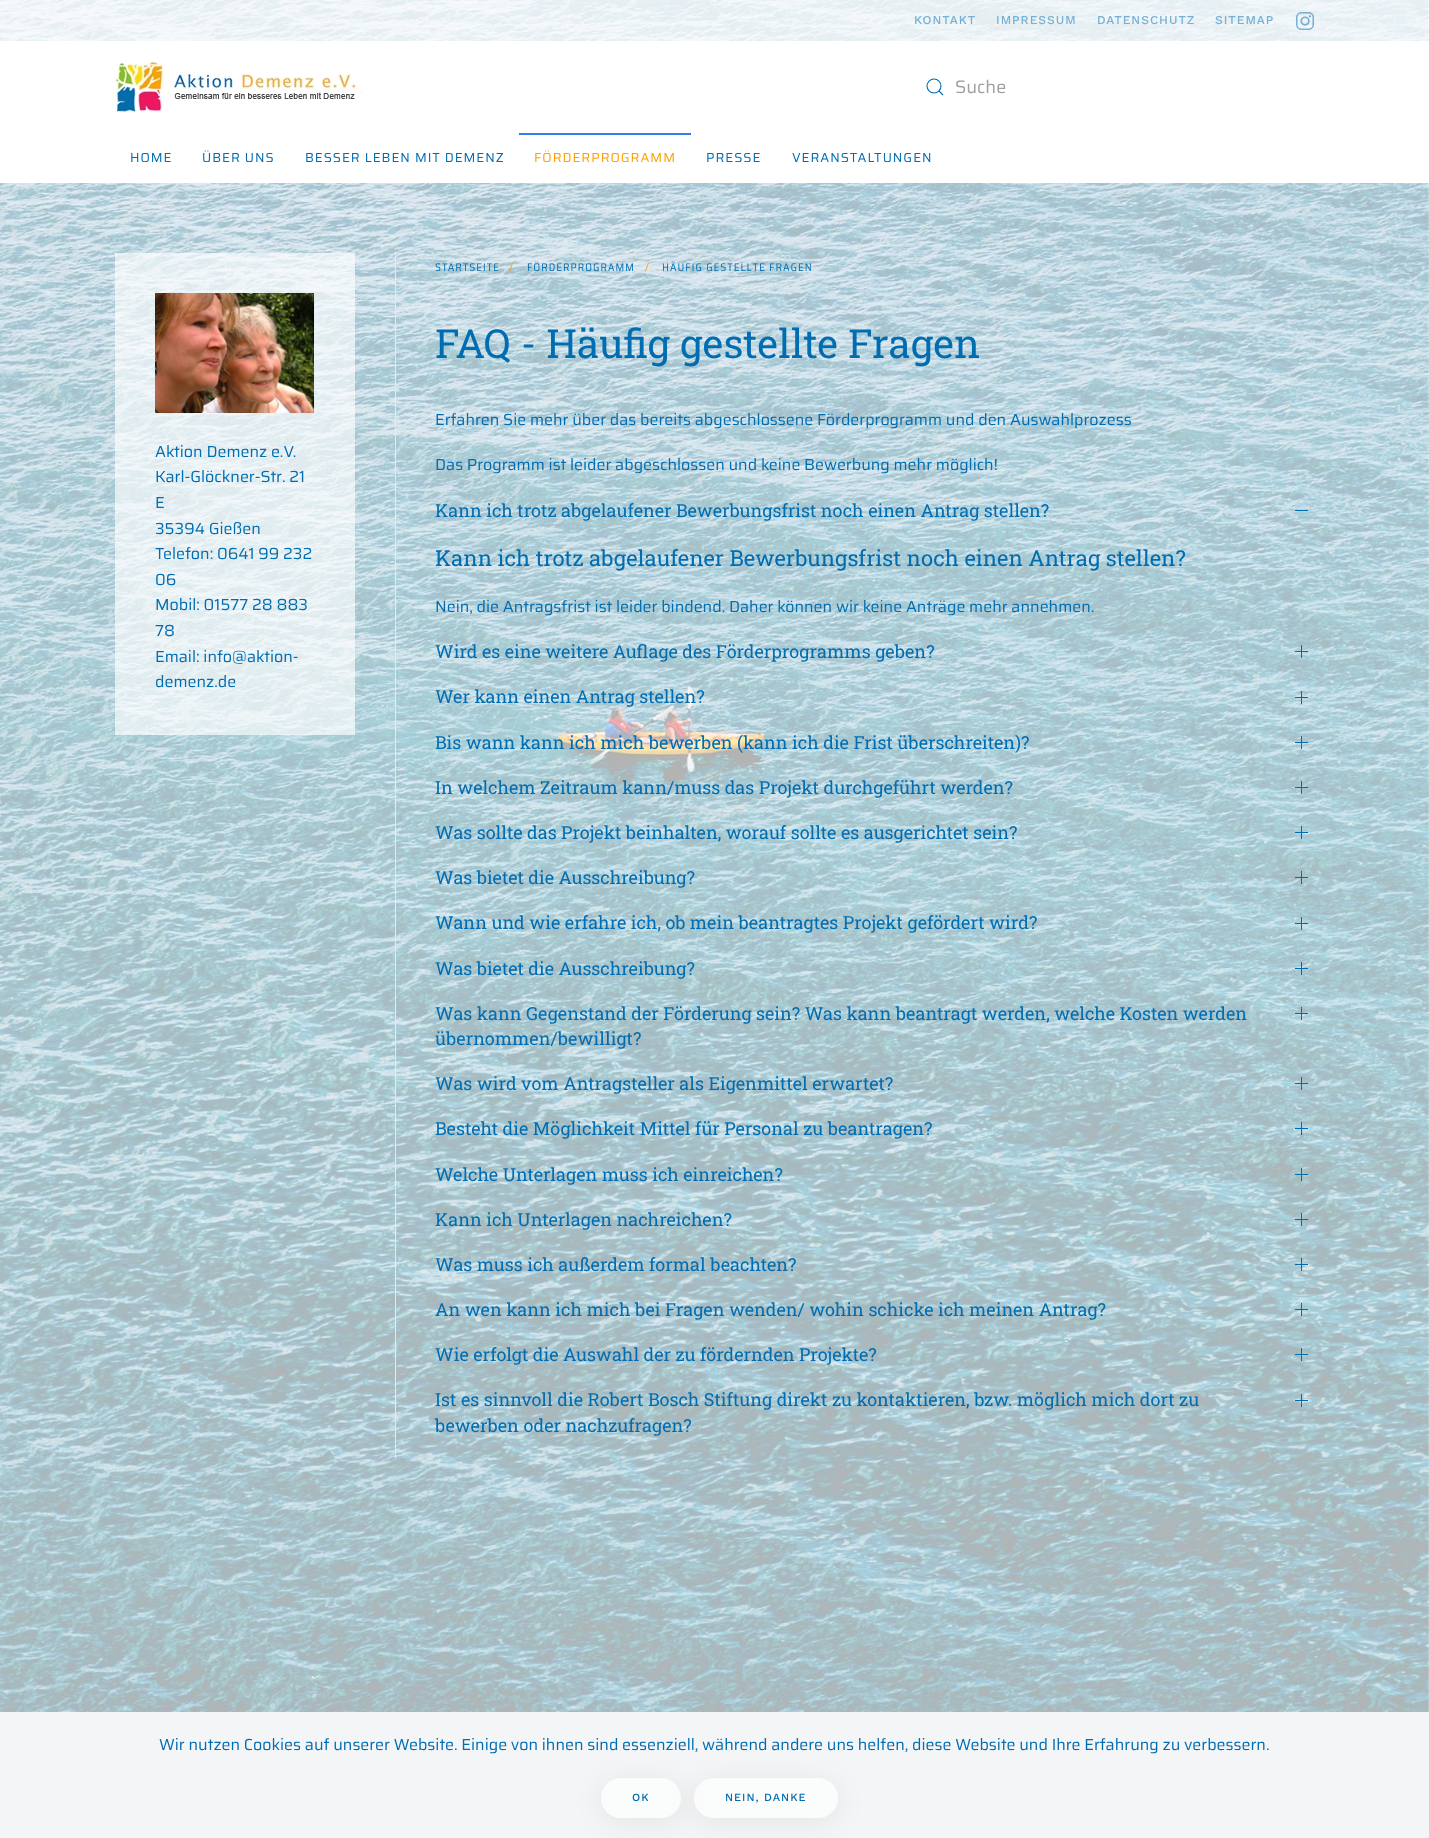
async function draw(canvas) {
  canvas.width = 1429
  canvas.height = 1838
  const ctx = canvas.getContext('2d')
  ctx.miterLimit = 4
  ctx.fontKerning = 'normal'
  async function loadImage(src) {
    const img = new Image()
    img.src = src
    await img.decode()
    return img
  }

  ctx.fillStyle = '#fff'
  ctx.fillRect(0, 0, 1429, 1838)
  ctx.drawImage(await loadImage('image0.png'), 0, 0, 1429, 1712)
  ctx.fillStyle = '#ffffffe6'
  ctx.fillRect(0, 0, 1429, 41)
  ctx.letterSpacing = '1px'
  ctx.font = '500 12px Work Sans'
  ctx.fillStyle = '#76b0d4'
  ctx.fillText('KONTAKT', 914, 24)
  ctx.fillText('IMPRESSUM', 996, 24)
  ctx.fillText('DATENSCHUTZ', 1097, 24)
  ctx.fillText('SITEMAP', 1215, 24)
  ctx.drawImage(await loadImage('image1.png'), 1296, 12, 18, 18)
  ctx.fillStyle = '#fff'
  ctx.fillRect(0, 41, 1429, 142)
  ctx.drawImage(await loadImage('image2.png'), 115, 61, 248, 52)
  ctx.beginPath()
  ctx.arc(934, 86, 7, 0, 2 * Math.PI)
  ctx.strokeStyle = '#006db2'
  ctx.lineWidth = 1.1
  ctx.stroke()
  ctx.beginPath()
  ctx.moveTo(939, 91)
  ctx.lineTo(943, 95)
  ctx.closePath()
  ctx.stroke()
  ctx.letterSpacing = '0px'
  ctx.font = '100 18px Saira'
  ctx.fillStyle = '#a0a0a0'
  ctx.fillText('Suche', 955, 93)
  ctx.letterSpacing = '1px'
  ctx.font = '100 13px Saira'
  ctx.fillStyle = '#006db2'
  ctx.fillText('HOME', 130, 162)
  ctx.fillText('ÜBER UNS', 202, 162)
  ctx.fillText('BESSER LEBEN MIT DEMENZ', 305, 162)
  ctx.fillStyle = '#2e7eed'
  ctx.fillRect(519, 133, 172, 2)
  ctx.fillStyle = '#ff9f00'
  ctx.fillText('FÖRDERPROGRAMM', 534, 162)
  ctx.fillStyle = '#006db2'
  ctx.fillText('PRESSE', 706, 162)
  ctx.fillText('VERANSTALTUNGEN', 792, 162)
  ctx.fillStyle = '#ffffffa6'
  ctx.fillRect(115, 253, 240, 482)
  ctx.drawImage(await loadImage('image3.png'), 155, 293, 159, 120)
  ctx.letterSpacing = '0px'
  ctx.font = '100 16px Saira'
  ctx.fillStyle = '#006db2'
  ctx.fillText('Aktion Demenz e.V.', 155, 457)
  ctx.fillText('Karl-Glöckner-Str. 21', 155, 482)
  ctx.fillText('E', 155, 508)
  ctx.fillText('35394 Gießen', 155, 534)
  ctx.fillText('Telefon: 0641 99 232', 155, 559)
  ctx.fillText('06', 155, 585)
  ctx.fillText('Mobil: 01577 28 883', 155, 610)
  ctx.fillText('78', 155, 636)
  ctx.fillText('Email: info@aktion-', 155, 662)
  ctx.fillText('demenz.de', 155, 687)
  ctx.fillStyle = '#e9e9e9'
  ctx.fillRect(395, 253, 1, 1205)
  ctx.drawImage(await loadImage('image4.png'), 435, 263, 64, 9)
  ctx.font = '100 11px Saira'
  ctx.fillStyle = '#ff9f00'
  ctx.fillText('/', 509, 271)
  ctx.drawImage(await loadImage('image5.png'), 527, 261, 106, 11)
  ctx.fillText('/', 645, 271)
  ctx.drawImage(await loadImage('image6.png'), 662, 261, 149, 11)
  ctx.font = '40px Roboto Slab'
  ctx.fillStyle = '#006db2'
  ctx.fillText('FAQ - Häufig gestellte Fragen', 435, 358)
  ctx.font = '100 16px Saira'
  ctx.fillText('Erfahren Sie mehr über das bereits abgeschlossene Förderprogramm und den Auswahlprozess', 435, 425)
  ctx.fillText('Das Programm ist leider abgeschlossen und keine Bewerbung mehr möglich!', 435, 470)
  ctx.font = '18px Roboto Slab'
  ctx.fillText('Kann ich trotz abgelaufener Bewerbungsfrist noch einen Antrag stellen?', 435, 517)
  ctx.fillRect(1295, 510, 13, 1)
  ctx.font = '22px Roboto Slab'
  ctx.fillText('Kann ich trotz abgelaufener Bewerbungsfrist noch einen Antrag stellen?', 435, 566)
  ctx.font = '100 16px Saira'
  ctx.fillText('Nein, die Antragsfrist ist leider bindend. Daher können wir keine Anträge mehr annehmen.', 435, 612)
  ctx.font = '18px Roboto Slab'
  ctx.fillText('Wird es eine weitere Auflage des Förderprogramms geben?', 435, 658)
  ctx.fillRect(1295, 651, 13, 1)
  ctx.fillRect(1301, 645, 1, 13)
  ctx.fillText('Wer kann einen Antrag stellen?', 435, 703)
  ctx.fillRect(1295, 697, 13, 1)
  ctx.fillRect(1301, 691, 1, 13)
  ctx.fillText('Bis wann kann ich mich bewerben (kann ich die Frist überschreiten)?', 435, 749)
  ctx.fillRect(1295, 742, 13, 1)
  ctx.fillRect(1301, 736, 1, 13)
  ctx.fillText('In welchem Zeitraum kann/muss das Projekt durchgeführt werden?', 435, 794)
  ctx.fillRect(1295, 787, 13, 1)
  ctx.fillRect(1301, 781, 1, 13)
  ctx.fillText('Was sollte das Projekt beinhalten, worauf sollte es ausgerichtet sein?', 435, 839)
  ctx.fillRect(1295, 832, 13, 1)
  ctx.fillRect(1301, 826, 1, 13)
  ctx.fillText('Was bietet die Ausschreibung?', 435, 884)
  ctx.fillRect(1295, 877, 13, 1)
  ctx.fillRect(1301, 871, 1, 13)
  ctx.fillText('Wann und wie erfahre ich, ob mein beantragtes Projekt gefördert wird?', 435, 929)
  ctx.fillRect(1295, 923, 13, 1)
  ctx.fillRect(1301, 917, 1, 13)
  ctx.fillText('Was bietet die Ausschreibung?', 435, 975)
  ctx.fillRect(1295, 968, 13, 1)
  ctx.fillRect(1301, 962, 1, 13)
  ctx.fillText('Was kann Gegenstand der Förderung sein? Was kann beantragt werden, welche Kosten werden', 435, 1020)
  ctx.fillRect(1295, 1013, 13, 1)
  ctx.fillRect(1301, 1007, 1, 13)
  ctx.fillText('übernommen/bewilligt?', 435, 1045)
  ctx.fillText('Was wird vom Antragsteller als Eigenmittel erwartet?', 435, 1090)
  ctx.fillRect(1295, 1083, 13, 1)
  ctx.fillRect(1301, 1077, 1, 13)
  ctx.fillText('Besteht die Möglichkeit Mittel für Personal zu beantragen?', 435, 1135)
  ctx.fillRect(1295, 1128, 13, 1)
  ctx.fillRect(1301, 1122, 1, 13)
  ctx.fillText('Welche Unterlagen muss ich einreichen?', 435, 1181)
  ctx.fillRect(1295, 1174, 13, 1)
  ctx.fillRect(1301, 1168, 1, 13)
  ctx.fillText('Kann ich Unterlagen nachreichen?', 435, 1226)
  ctx.fillRect(1295, 1219, 13, 1)
  ctx.fillRect(1301, 1213, 1, 13)
  ctx.fillText('Was muss ich außerdem formal beachten?', 435, 1271)
  ctx.fillRect(1295, 1264, 13, 1)
  ctx.fillRect(1301, 1258, 1, 13)
  ctx.fillText('An wen kann ich mich bei Fragen wenden/ wohin schicke ich meinen Antrag?', 435, 1316)
  ctx.fillRect(1295, 1309, 13, 1)
  ctx.fillRect(1301, 1303, 1, 13)
  ctx.fillText('Wie erfolgt die Auswahl der zu fördernden Projekte?', 435, 1361)
  ctx.fillRect(1295, 1354, 13, 1)
  ctx.fillRect(1301, 1348, 1, 13)
  ctx.fillText('Ist es sinnvoll die Robert Bosch Stiftung direkt zu kontaktieren, bzw. möglich mich dort zu', 435, 1406)
  ctx.fillRect(1295, 1400, 13, 1)
  ctx.fillRect(1301, 1394, 1, 13)
  ctx.fillText('bewerben oder nachzufragen?', 435, 1432)
  ctx.fillStyle = '#f4f5f7'
  ctx.fillRect(0, 1712, 1429, 126)
  ctx.font = '100 16px Saira'
  ctx.fillStyle = '#006db2'
  ctx.fillText('Wir nutzen Cookies auf unserer Website. Einige von ihnen sind essenziell, während andere uns helfen, diese Website und Ihre Erfahrung zu verbessern.', 159, 1750)
  ctx.save()
  ctx.beginPath()
  ctx.moveTo(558, 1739)
  ctx.lineTo(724, 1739)
  ctx.lineTo(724, 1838)
  ctx.lineTo(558, 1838)
  ctx.closePath()
  ctx.moveTo(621, 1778)
  ctx.lineTo(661, 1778)
  ctx.bezierCurveTo(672, 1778, 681, 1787, 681, 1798)
  ctx.bezierCurveTo(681, 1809, 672, 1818, 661, 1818)
  ctx.lineTo(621, 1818)
  ctx.bezierCurveTo(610, 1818, 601, 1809, 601, 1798)
  ctx.bezierCurveTo(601, 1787, 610, 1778, 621, 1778)
  ctx.closePath()
  ctx.clip('evenodd')
  ctx.fillStyle = '#00000012'
  ctx.filter = 'blur(14px)'
  ctx.beginPath()
  ctx.roundRect(601, 1782, 80, 40, 20)
  ctx.fill()
  ctx.filter = 'none'
  ctx.restore()
  ctx.fillStyle = '#ffffffa6'
  ctx.beginPath()
  ctx.roundRect(601, 1778, 80, 40, 20)
  ctx.fill()
  ctx.letterSpacing = '1px'
  ctx.font = '500 11px Work Sans'
  ctx.fillStyle = '#006db2'
  ctx.fillText('OK', 632, 1801)
  ctx.save()
  ctx.beginPath()
  ctx.moveTo(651, 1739)
  ctx.lineTo(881, 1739)
  ctx.lineTo(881, 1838)
  ctx.lineTo(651, 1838)
  ctx.closePath()
  ctx.moveTo(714, 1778)
  ctx.lineTo(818, 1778)
  ctx.bezierCurveTo(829, 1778, 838, 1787, 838, 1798)
  ctx.bezierCurveTo(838, 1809, 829, 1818, 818, 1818)
  ctx.lineTo(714, 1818)
  ctx.bezierCurveTo(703, 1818, 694, 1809, 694, 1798)
  ctx.bezierCurveTo(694, 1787, 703, 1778, 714, 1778)
  ctx.closePath()
  ctx.clip('evenodd')
  ctx.fillStyle = '#00000012'
  ctx.filter = 'blur(14px)'
  ctx.beginPath()
  ctx.roundRect(694, 1782, 144, 40, 20)
  ctx.fill()
  ctx.filter = 'none'
  ctx.restore()
  ctx.fillStyle = '#ffffffa6'
  ctx.beginPath()
  ctx.roundRect(694, 1778, 144, 40, 20)
  ctx.fill()
  ctx.fillStyle = '#006db2'
  ctx.fillText('NEIN, DANKE', 725, 1801)
}

draw(document.querySelector('canvas'))
